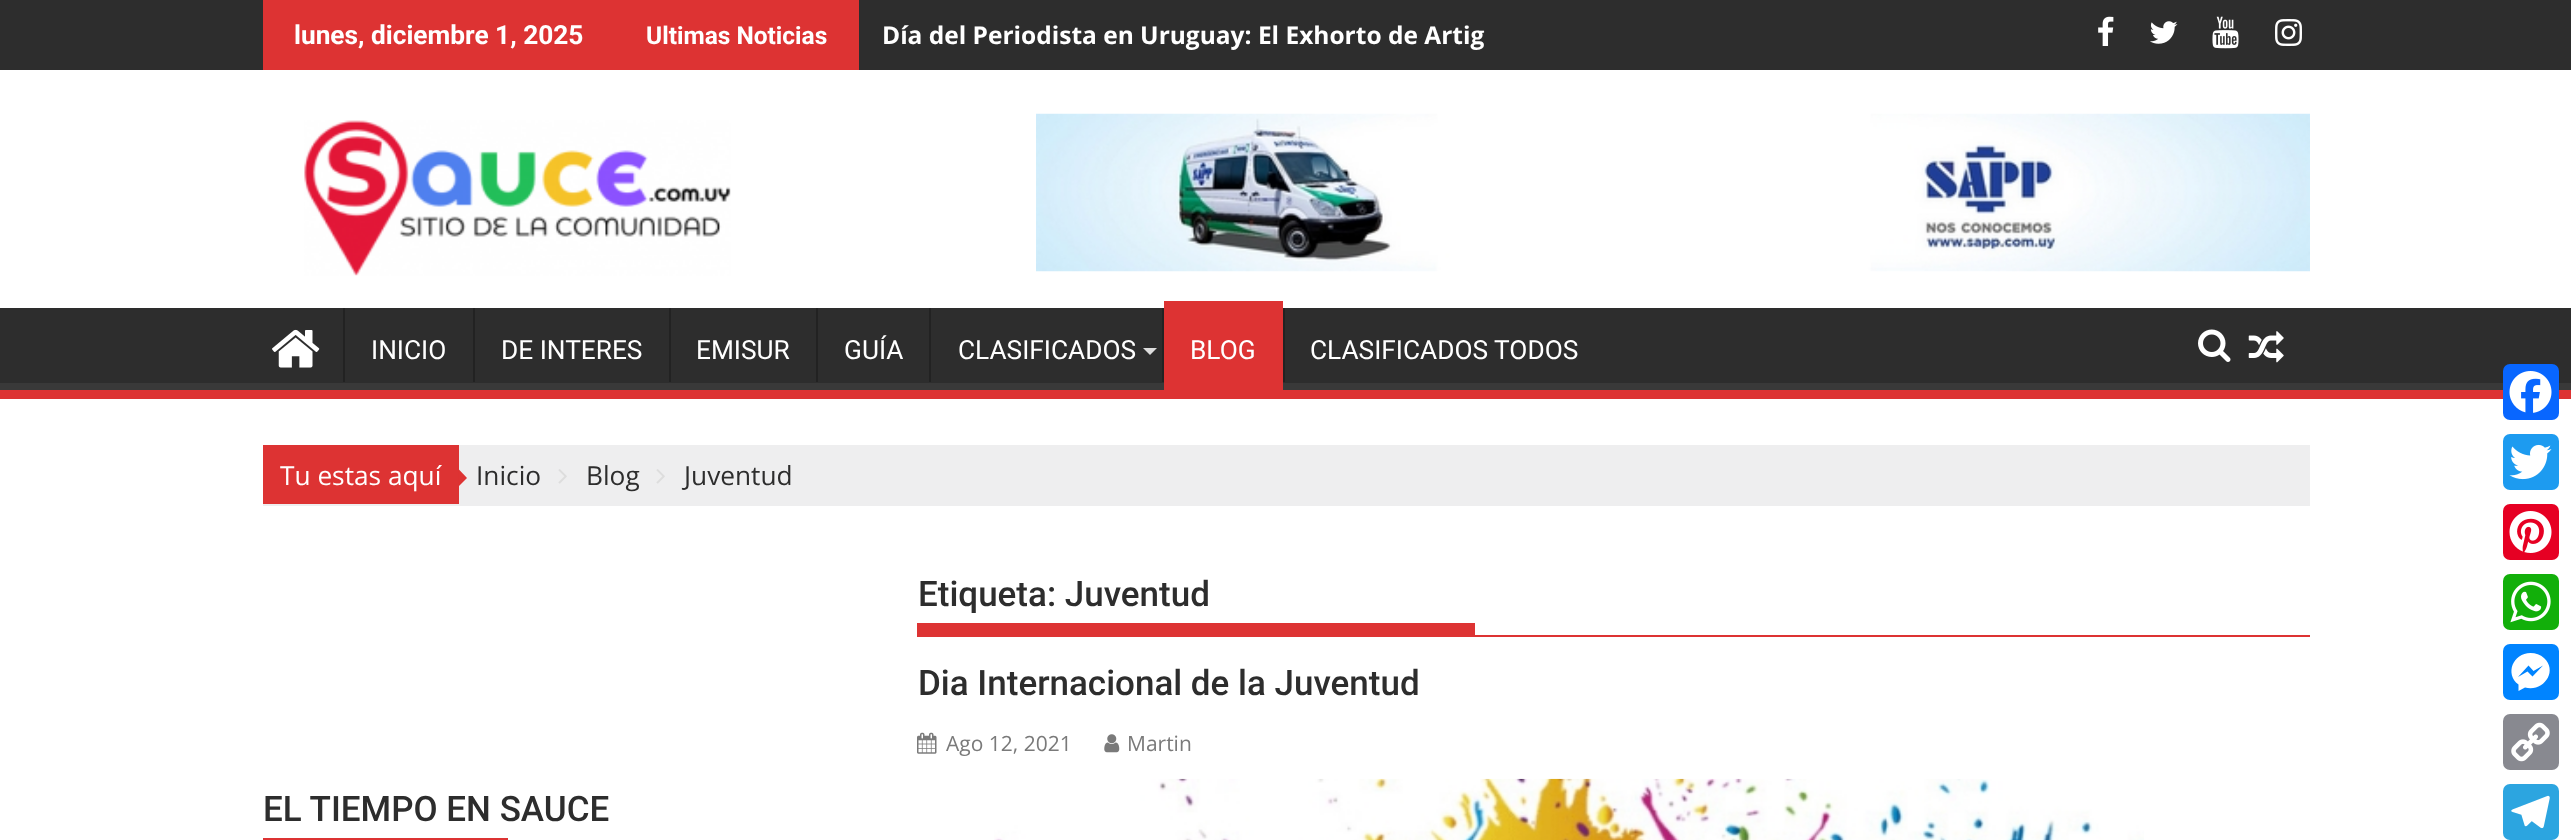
async function draw(canvas) {
  canvas.width = 2571
  canvas.height = 840
  const ctx = canvas.getContext('2d')
  ctx.miterLimit = 4
  ctx.fontKerning = 'normal'
  async function loadImage(src) {
    const img = new Image()
    img.src = src
    await img.decode()
    return img
  }

  ctx.fillStyle = '#fff'
  ctx.fillRect(0, 0, 2571, 840)
  ctx.fillStyle = '#2d2d2d'
  ctx.fillRect(0, 0, 2571, 70)
  ctx.fillStyle = '#d33'
  ctx.fillRect(263, 0, 596, 70)
  ctx.font = 'bold 26.25px Roboto'
  ctx.fillStyle = '#fff'
  ctx.fillText('lunes, diciembre 1, 2025', 294, 44)
  ctx.font = 'bold 24.5px Roboto'
  ctx.fillText('Ultimas Noticias', 646, 44)
  ctx.font = 'bold 24.5px Open Sans'
  ctx.fillText('Día del Periodista en Uruguay: El Exhorto de Artig', 882, 44)
  ctx.drawImage(await loadImage('image0.png'), 2098, 16, 16, 30)
  ctx.drawImage(await loadImage('image1.png'), 2150, 21, 28, 23)
  ctx.drawImage(await loadImage('image2.png'), 2212, 16, 27, 33)
  ctx.drawImage(await loadImage('image3.png'), 2275, 19, 27, 27)
  ctx.drawImage(await loadImage('image4.png'), 304, 120, 427, 156)
  ctx.drawImage(await loadImage('image5.png'), 1036, 113, 1274, 159)
  ctx.fillStyle = '#2d2d2d'
  ctx.fillRect(0, 308, 2571, 75)
  ctx.save()
  ctx.beginPath()
  ctx.rect(0, 308, 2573, 82)
  ctx.clip()
  ctx.fillStyle = '#393939'
  ctx.beginPath()
  ctx.moveTo(-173, 135)
  ctx.lineTo(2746, 135)
  ctx.lineTo(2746, 564)
  ctx.lineTo(-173, 564)
  ctx.closePath()
  ctx.moveTo(-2, 298)
  ctx.lineTo(2571, 298)
  ctx.bezierCurveTo(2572, 298, 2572, 298, 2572, 299)
  ctx.lineTo(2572, 382)
  ctx.bezierCurveTo(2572, 382, 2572, 383, 2571, 383)
  ctx.lineTo(-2, 383)
  ctx.bezierCurveTo(-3, 383, -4, 382, -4, 382)
  ctx.lineTo(-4, 299)
  ctx.bezierCurveTo(-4, 298, -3, 298, -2, 298)
  ctx.closePath()
  ctx.fill('evenodd')
  ctx.restore()
  ctx.fillStyle = '#d33'
  ctx.fillRect(0, 390, 2571, 9)
  ctx.drawImage(await loadImage('image6.png'), 272, 329, 48, 39)
  ctx.fillStyle = '#222'
  ctx.fillRect(343, 308, 2, 74)
  ctx.font = '26.25px Roboto'
  ctx.fillStyle = '#fff'
  ctx.fillText('INICIO', 371, 359)
  ctx.fillStyle = '#222'
  ctx.fillRect(473, 308, 2, 74)
  ctx.fillStyle = '#fff'
  ctx.fillText('DE INTERES', 501, 359)
  ctx.fillStyle = '#222'
  ctx.fillRect(669, 308, 2, 74)
  ctx.fillStyle = '#fff'
  ctx.fillText('EMISUR', 696, 359)
  ctx.fillStyle = '#222'
  ctx.fillRect(816, 308, 2, 74)
  ctx.fillStyle = '#fff'
  ctx.fillText('GUÍA', 844, 359)
  ctx.fillStyle = '#222'
  ctx.fillRect(929, 308, 2, 74)
  ctx.fillStyle = '#fff'
  ctx.fillText('CLASIFICADOS', 958, 359)
  ctx.fillStyle = '#ddd'
  ctx.beginPath()
  ctx.moveTo(1143, 348)
  ctx.lineTo(1157, 348)
  ctx.lineTo(1150, 355)
  ctx.closePath()
  ctx.fill()
  ctx.fillStyle = '#222'
  ctx.fillRect(1162, 308, 2, 74)
  ctx.fillStyle = '#d33'
  ctx.fillRect(1164, 301, 119, 89)
  ctx.fillStyle = '#fff'
  ctx.fillText('BLOG', 1190, 359)
  ctx.fillStyle = '#222'
  ctx.fillRect(1283, 308, 2, 74)
  ctx.fillStyle = '#fff'
  ctx.fillText('CLASIFICADOS TODOS', 1310, 359)
  ctx.drawImage(await loadImage('image7.png'), 2198, 329, 33, 33)
  ctx.drawImage(await loadImage('image8.png'), 2248, 331, 36, 32)
  ctx.fillStyle = '#eeeeef'
  ctx.fillRect(263, 445, 2047, 61)
  ctx.fillStyle = '#d33'
  ctx.fillRect(263, 445, 196, 59)
  ctx.font = '26.25px Open Sans'
  ctx.fillStyle = '#fff'
  ctx.fillText('Tu estas aquí', 280, 485)
  ctx.fillStyle = '#d33'
  ctx.beginPath()
  ctx.moveTo(458.5, 486.5)
  ctx.lineTo(458.5, 469)
  ctx.lineTo(467, 478)
  ctx.closePath()
  ctx.fill()
  ctx.fillStyle = '#2d2d2d'
  ctx.fillText('Inicio', 476, 485)
  ctx.drawImage(await loadImage('image9.png'), 558, 469, 9, 15)
  ctx.fillText('Blog', 586, 485)
  ctx.drawImage(await loadImage('image9.png'), 656, 469, 9, 15)
  ctx.fillText('Juventud', 684, 485)
  ctx.fillStyle = '#d33'
  ctx.fillRect(917, 635, 1393, 2)
  ctx.font = '500 35px Roboto'
  ctx.fillStyle = '#2d2d2d'
  ctx.fillText('Etiqueta: Juventud', 918, 606)
  ctx.fillStyle = '#d33'
  ctx.fillRect(917, 623, 558, 12)
  ctx.fillStyle = '#2d2d2d'
  ctx.fillText('Dia Internacional de la Juventud', 918, 695)
  ctx.drawImage(await loadImage('image10.png'), 917, 732, 20, 22)
  ctx.font = '21px Open Sans'
  ctx.fillStyle = '#7a7a7a'
  ctx.fillText('Ago 12, 2021', 946, 751)
  ctx.drawImage(await loadImage('image11.png'), 1104, 734, 16, 19)
  ctx.fillText('Martin', 1127, 751)
  ctx.drawImage(await loadImage('image12.png'), 994, 778, 1150, 62)
  ctx.font = '500 35px Roboto'
  ctx.fillStyle = '#2d2d2d'
  ctx.fillText('EL TIEMPO EN SAUCE', 263, 821)
  ctx.fillStyle = '#d33'
  ctx.fillRect(263, 838, 245, 2)
  ctx.fillStyle = '#0866ff'
  ctx.beginPath()
  ctx.roundRect(2503, 364, 56, 56, 7)
  ctx.fill()
  ctx.drawImage(await loadImage('image13.png'), 2509, 371, 43, 42)
  ctx.fillStyle = '#1d9bf0'
  ctx.beginPath()
  ctx.roundRect(2503, 434, 56, 56, 7)
  ctx.fill()
  ctx.drawImage(await loadImage('image14.png'), 2509, 444, 43, 36)
  ctx.fillStyle = '#e60023'
  ctx.beginPath()
  ctx.roundRect(2503, 504, 56, 56, 7)
  ctx.fill()
  ctx.drawImage(await loadImage('image15.png'), 2509, 511, 43, 42)
  ctx.fillStyle = '#12af0a'
  ctx.beginPath()
  ctx.roundRect(2503, 574, 56, 56, 7)
  ctx.fill()
  ctx.drawImage(await loadImage('image16.png'), 2510, 581, 41, 42)
  ctx.fillStyle = '#0084ff'
  ctx.beginPath()
  ctx.roundRect(2503, 644, 56, 56, 7)
  ctx.fill()
  ctx.fillStyle = '#fff'
  ctx.beginPath()
  ctx.moveTo(2530.5, 653)
  ctx.bezierCurveTo(2513, 653, 2504.5, 674, 2518.5, 684.5)
  ctx.lineTo(2518.5, 691)
  ctx.lineTo(2525, 687.5)
  ctx.bezierCurveTo(2543, 692.5, 2558.5, 671.5, 2544, 658)
  ctx.bezierCurveTo(2540.5, 654.5, 2535.5, 653, 2530.5, 653)
  ctx.moveTo(2532.5, 676.5)
  ctx.lineTo(2527.5, 671.5)
  ctx.lineTo(2518, 677)
  ctx.lineTo(2528.5, 665.5)
  ctx.lineTo(2533.5, 671)
  ctx.lineTo(2543, 665.5)
  ctx.closePath()
  ctx.fill()
  ctx.fillStyle = '#888990'
  ctx.beginPath()
  ctx.roundRect(2503, 714, 56, 56, 7)
  ctx.fill()
  ctx.drawImage(await loadImage('image17.png'), 2511, 722, 39, 40)
  ctx.fillStyle = '#2ca5e0'
  ctx.beginPath()
  ctx.roundRect(2503, 784, 56, 56, 7)
  ctx.fill()
  ctx.drawImage(await loadImage('image18.png'), 2511, 795, 39, 34)
}

draw(document.querySelector('canvas'))
